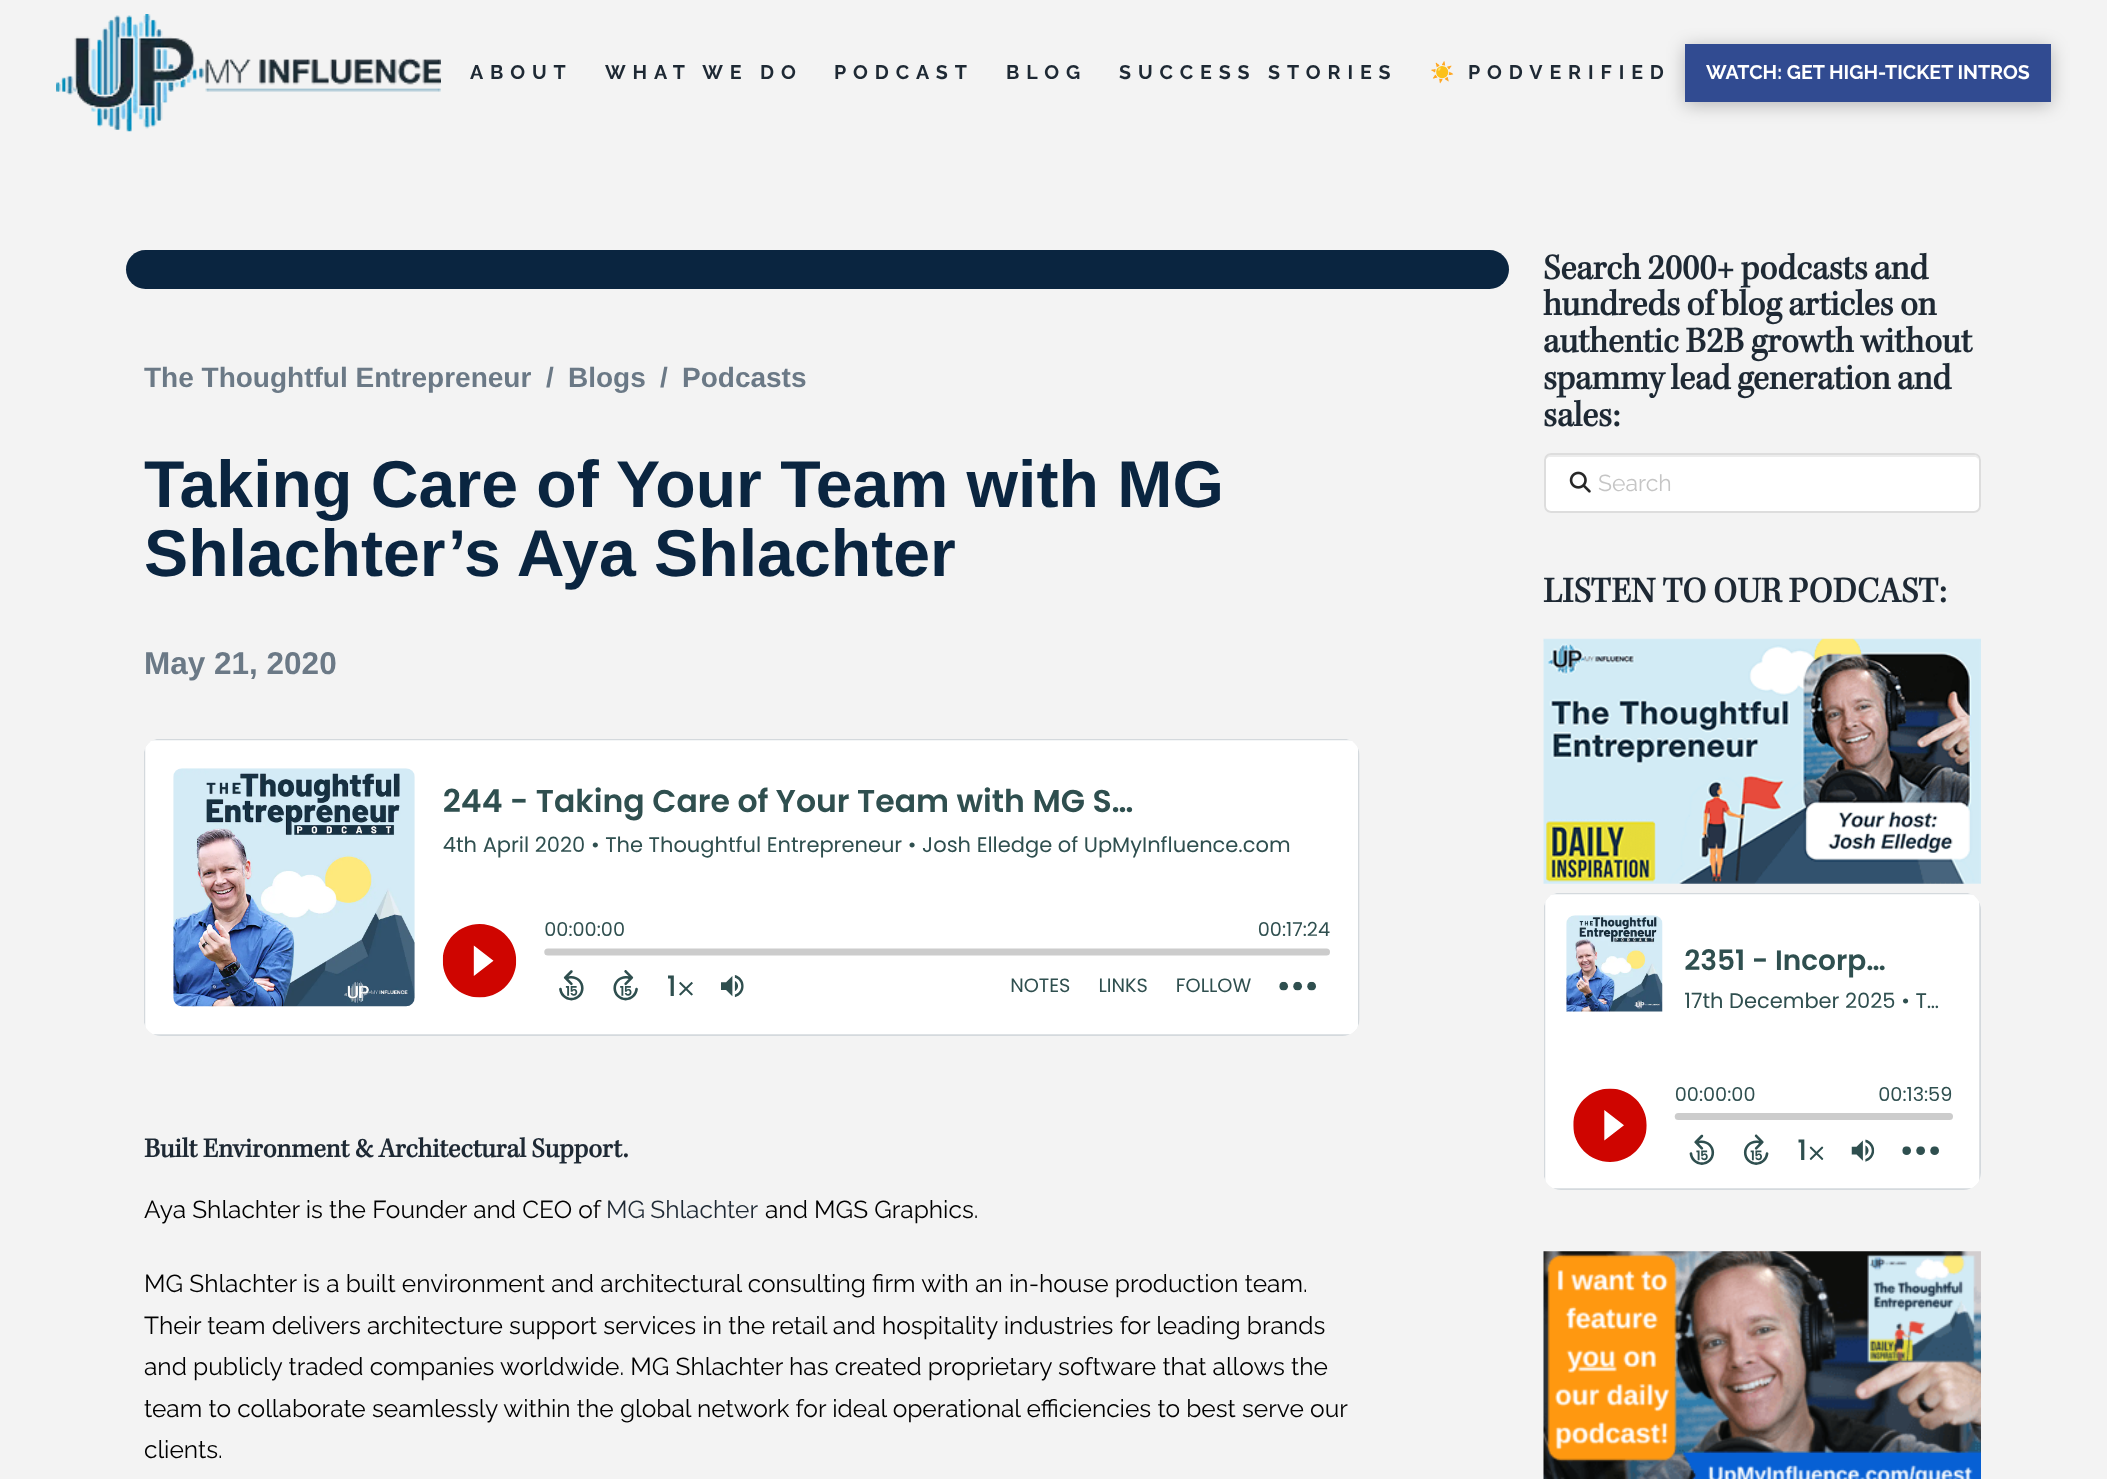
async function draw(canvas) {
  canvas.width = 2107
  canvas.height = 1479
  const ctx = canvas.getContext('2d')
  ctx.miterLimit = 4
  ctx.fontKerning = 'normal'
  async function loadImage(src) {
    const img = new Image()
    img.src = src
    await img.decode()
    return img
  }

  ctx.fillStyle = '#f3f3f3'
  ctx.fillRect(0, 0, 2107, 1479)
  ctx.drawImage(await loadImage('image0.png'), 56, 14, 385, 118)
  ctx.letterSpacing = '6.9px'
  ctx.font = 'bold 19.6px Raleway'
  ctx.fillStyle = '#1e2934'
  ctx.fillText('ABOUT', 470, 79)
  ctx.fillText('WHAT WE DO', 605, 79)
  ctx.fillText('PODCAST', 834, 79)
  ctx.fillText('BLOG', 1006, 79)
  ctx.fillText('SUCCESS STORIES', 1119, 79)
  ctx.font = 'bold 19.6px Noto Color Emoji'
  ctx.fillText('☀️', 1430, 79)
  ctx.font = 'bold 19.6px Raleway'
  ctx.fillText('PODVERIFIED', 1468, 79)
  ctx.fillStyle = '#00000040'
  ctx.filter = 'blur(9px)'
  ctx.beginPath()
  ctx.rect(1685, 47, 366, 58)
  ctx.fill()
  ctx.filter = 'none'
  ctx.fillStyle = '#314b91'
  ctx.fillRect(1685, 44, 366, 58)
  ctx.letterSpacing = '0px'
  ctx.fillStyle = '#fff'
  ctx.fillText('WATCH: GET HIGH-TICKET INTROS', 1706, 79)
  ctx.fillStyle = '#0a2540'
  ctx.beginPath()
  ctx.roundRect(126, 250, 1383, 39, 19.5)
  ctx.fill()
  ctx.font = 'bold 28px Liberation Sans'
  ctx.fillStyle = '#6b7986'
  ctx.fillText('The Thoughtful Entrepreneur', 144, 387)
  ctx.fillText('/', 546, 387)
  ctx.fillText('Blogs', 568, 387)
  ctx.fillText('/', 660, 387)
  ctx.fillText('Podcasts', 682, 387)
  ctx.font = 'bold 66.2px Liberation Sans'
  ctx.fillStyle = '#0a2540'
  ctx.fillText('Taking Care of Your Team with MG', 144, 507)
  ctx.fillText('Shlachter’s Aya Shlachter', 144, 576)
  ctx.font = 'bold 31.5px Liberation Sans'
  ctx.fillStyle = '#6b7986'
  ctx.fillText('May 21, 2020', 144, 674)
  ctx.drawImage(await loadImage('image1.png'), 144, 739, 1216, 297)
  ctx.font = 'bold 28px "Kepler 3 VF"'
  ctx.fillStyle = '#1e2934'
  ctx.fillText('Built Environment & Architectural Support.', 144, 1157)
  ctx.font = '24.5px Raleway'
  ctx.fillStyle = '#000'
  ctx.fillText('Aya Shlachter is the Founder and CEO of', 144, 1218)
  ctx.wordSpacing = '-1px'
  ctx.fillStyle = '#1e2934'
  ctx.fillText('MG Shlachter', 606, 1218)
  ctx.wordSpacing = '0px'
  ctx.fillStyle = '#000'
  ctx.fillText('and MGS Graphics.', 765, 1218)
  ctx.fillText('MG Shlachter is a built environment and architectural consulting firm with an in-house production team.', 144, 1292)
  ctx.fillText('Their team delivers architecture support services in the retail and hospitality industries for leading brands', 144, 1334)
  ctx.fillText('and publicly traded companies worldwide. MG Shlachter has created proprietary software that allows the', 144, 1375)
  ctx.fillText('team to collaborate seamlessly within the global network for ideal operational efficiencies to best serve our', 144, 1417)
  ctx.fillText('clients.', 144, 1458)
  ctx.font = 'bold 36.75px "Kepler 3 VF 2"'
  ctx.fillStyle = '#1e2934'
  ctx.fillText('Search 2000+ podcasts and', 1543, 279)
  ctx.fillText('hundreds of blog articles on', 1543, 315)
  ctx.fillText('authentic B2B growth without', 1543, 352)
  ctx.fillText('spammy lead generation and', 1543, 389)
  ctx.fillText('sales:', 1543, 426)
  ctx.fillStyle = '#fff'
  ctx.beginPath()
  ctx.roundRect(1544, 453, 437, 60, 7)
  ctx.fill()
  ctx.fillStyle = '#ececec'
  ctx.beginPath()
  ctx.moveTo(1550, 457)
  ctx.lineTo(1974, 457)
  ctx.bezierCurveTo(1977, 457, 1979, 459, 1979, 462)
  ctx.bezierCurveTo(1979, 459, 1978, 455, 1974, 455)
  ctx.lineTo(1550, 455)
  ctx.bezierCurveTo(1546, 455, 1545, 459, 1545, 462)
  ctx.bezierCurveTo(1545, 459, 1548, 457, 1550, 457)
  ctx.closePath()
  ctx.fill()
  ctx.beginPath()
  ctx.roundRect(1545, 454, 435, 58, 6)
  ctx.strokeStyle = '#ddd'
  ctx.lineWidth = 2
  ctx.stroke()
  ctx.drawImage(await loadImage('image2.png'), 1569, 471, 22, 22)
  ctx.font = '23px Raleway'
  ctx.fillStyle = '#c5c5c5'
  ctx.fillText('Search', 1598, 491)
  ctx.font = 'bold 36.75px "Kepler 3 VF 2"'
  ctx.fillStyle = '#1e2934'
  ctx.fillText('LISTEN TO OUR PODCAST:', 1543, 602)
  ctx.drawImage(await loadImage('image3.png'), 1543, 638, 438, 246)
  ctx.drawImage(await loadImage('image4.png'), 1544, 893, 437, 297)
  ctx.drawImage(await loadImage('image5.png'), 1543, 1251, 438, 228)
}

draw(document.querySelector('canvas'))
